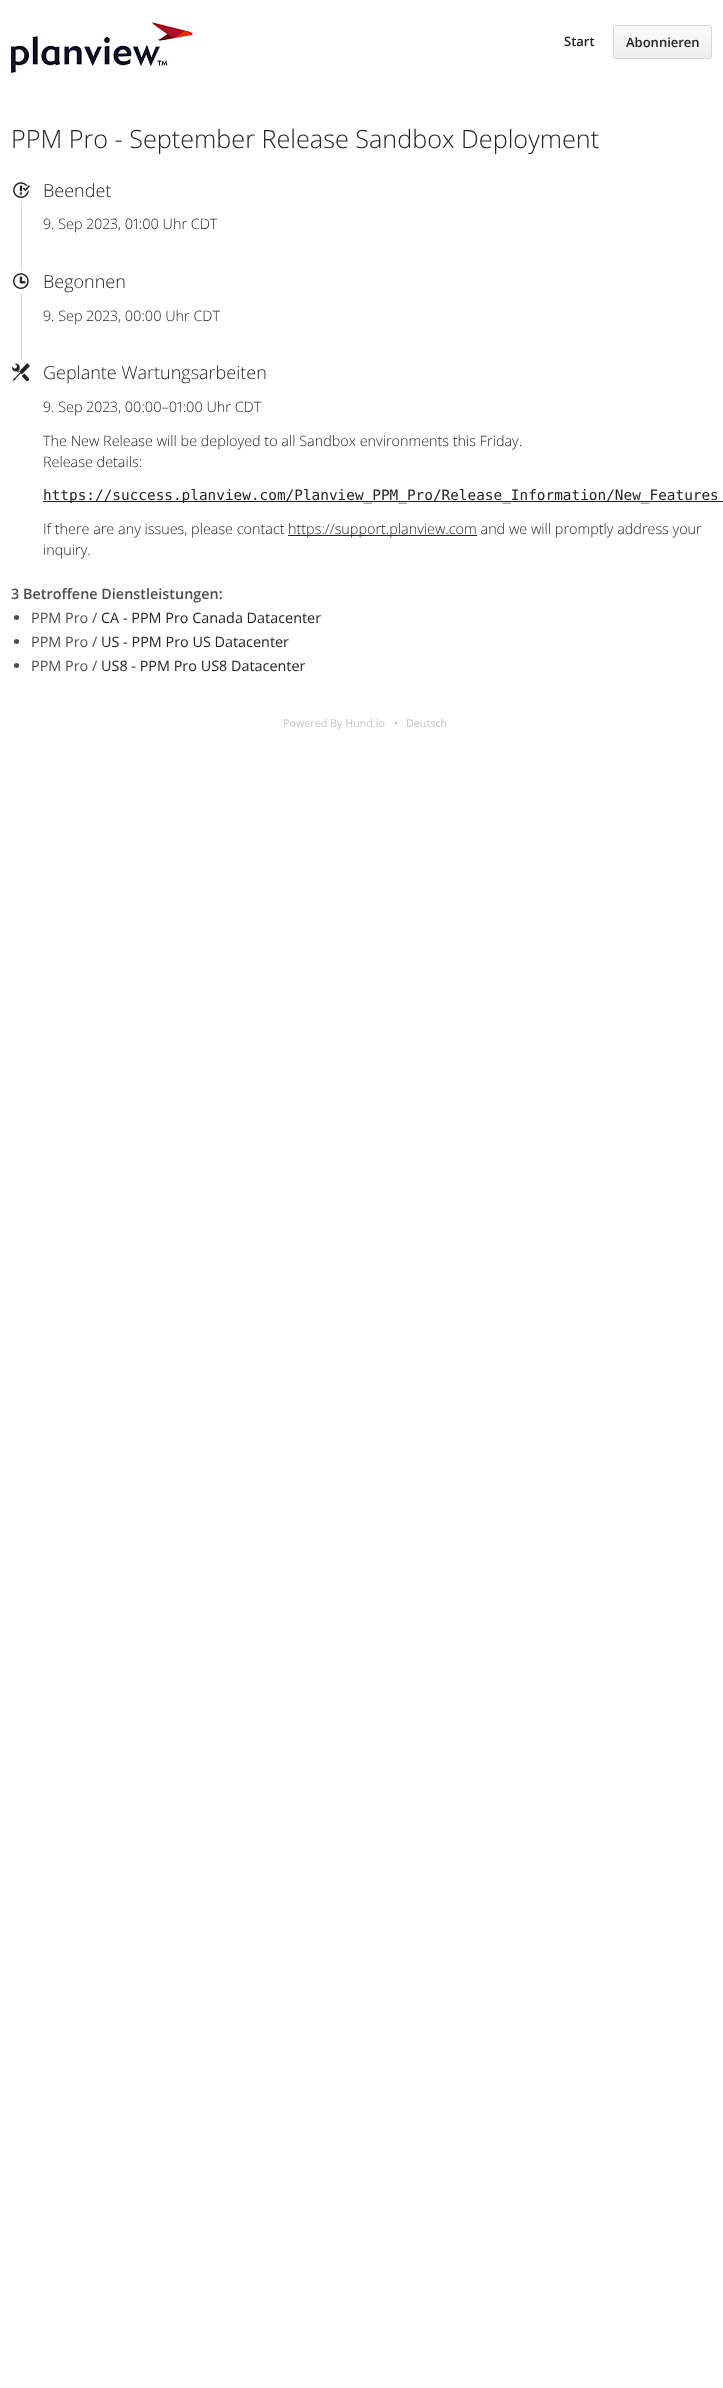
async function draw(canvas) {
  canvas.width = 723
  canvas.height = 2388
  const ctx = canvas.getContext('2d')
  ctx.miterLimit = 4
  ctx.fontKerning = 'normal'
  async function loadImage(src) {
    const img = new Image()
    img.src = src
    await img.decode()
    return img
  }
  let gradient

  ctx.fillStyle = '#fff'
  ctx.fillRect(0, 0, 723, 2388)
  ctx.drawImage(await loadImage('image0.png'), 11, 22, 182, 51)
  ctx.font = '600 13px Open Sans'
  ctx.fillStyle = '#222'
  ctx.fillText('Start', 564, 46)
  ctx.save()
  ctx.beginPath()
  ctx.roundRect(613, 25, 99, 34, 3)
  ctx.clip()
  gradient = ctx.createLinearGradient(663, 26, 663, 58)
  gradient.addColorStop(0, '#fbfbfb')
  gradient.addColorStop(1, '#eee')
  ctx.fillStyle = gradient
  ctx.fillRect(613, 26, 99, 32)
  ctx.restore()
  ctx.beginPath()
  ctx.roundRect(613.5, 25.5, 98, 33, 2.5)
  ctx.strokeStyle = '#d5d5d5'
  ctx.stroke()
  ctx.fillText('Abonnieren', 626, 47)
  ctx.font = '300 25.2px Open Sans'
  ctx.fillText('PPM Pro - September Release Sandbox Deployment', 11, 148)
  ctx.fillStyle = '#d9d9d9'
  ctx.fillRect(21, 202, 1, 158)
  ctx.drawImage(await loadImage('image1.png'), 13, 182, 17, 16)
  ctx.font = '300 18px Open Sans'
  ctx.fillStyle = '#222'
  ctx.fillText('Beendet', 43, 197)
  ctx.font = '300 14.4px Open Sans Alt'
  ctx.fillText('9. Sep 2023, 01:00 Uhr CDT', 43, 229)
  ctx.fillStyle = '#fff'
  ctx.fillRect(21, 269, 1, 24)
  ctx.drawImage(await loadImage('image2.png'), 13, 273, 16, 16)
  ctx.font = '300 18px Open Sans'
  ctx.fillStyle = '#222'
  ctx.fillText('Begonnen', 43, 288)
  ctx.font = '300 14.4px Open Sans Alt'
  ctx.fillText('9. Sep 2023, 00:00 Uhr CDT', 43, 321)
  ctx.drawImage(await loadImage('image3.png'), 12, 363, 18, 19)
  ctx.font = '300 18px Open Sans'
  ctx.fillText('Geplante Wartungsarbeiten', 43, 379)
  ctx.font = '300 14.4px Open Sans Alt'
  ctx.fillText('9. Sep 2023, 00:00–01:00 Uhr CDT', 43, 412)
  ctx.font = '300 14.4px Open Sans'
  ctx.fillText('The New Release will be deployed to all Sandbox environments this Friday.', 43, 446)
  ctx.fillText('Release details:', 43, 467)
  ctx.fillRect(43, 501, 680, 1)
  ctx.font = '14.4px DejaVu Sans Mono'
  ctx.fillText('https://success.planview.com/Planview_PPM_Pro/Release_Information/New_Features', 43, 500)
  ctx.font = '300 14.4px Open Sans'
  ctx.fillText('If there are any issues, please contact', 43, 534)
  ctx.fillRect(288, 535, 189, 1)
  ctx.fillText('https://support.planview.com and we will promptly address your', 288, 534)
  ctx.fillText('inquiry.', 43, 555)
  ctx.font = '600 14.4px Open Sans'
  ctx.fillStyle = '#4d4d4d'
  ctx.fillText('3 Betroffene Dienstleistungen:', 11, 599)
  ctx.beginPath()
  ctx.arc(16.5, 617.5, 2.5, 0, 2 * Math.PI)
  ctx.fill()
  ctx.font = '14.4px Open Sans'
  ctx.fillText('PPM Pro /', 31, 623)
  ctx.fillStyle = '#222'
  ctx.fillText('CA - PPM Pro Canada Datacenter', 101, 623)
  ctx.fillStyle = '#4d4d4d'
  ctx.beginPath()
  ctx.arc(16.5, 641.5, 2.5, 0, 2 * Math.PI)
  ctx.fill()
  ctx.fillText('PPM Pro /', 31, 647)
  ctx.fillStyle = '#222'
  ctx.fillText('US - PPM Pro US Datacenter', 101, 647)
  ctx.fillStyle = '#4d4d4d'
  ctx.beginPath()
  ctx.arc(16.5, 665.5, 2.5, 0, 2 * Math.PI)
  ctx.fill()
  ctx.fillText('PPM Pro /', 31, 671)
  ctx.fillStyle = '#222'
  ctx.fillText('US8 - PPM Pro US8 Datacenter', 101, 671)
  ctx.font = '10.75px Open Sans'
  ctx.fillStyle = '#c4c4c4'
  ctx.fillText('Powered By Hund.io', 283, 727)
  ctx.fillText('•', 394, 727)
  ctx.fillText('Deutsch', 406, 727)
}

draw(document.querySelector('canvas'))
